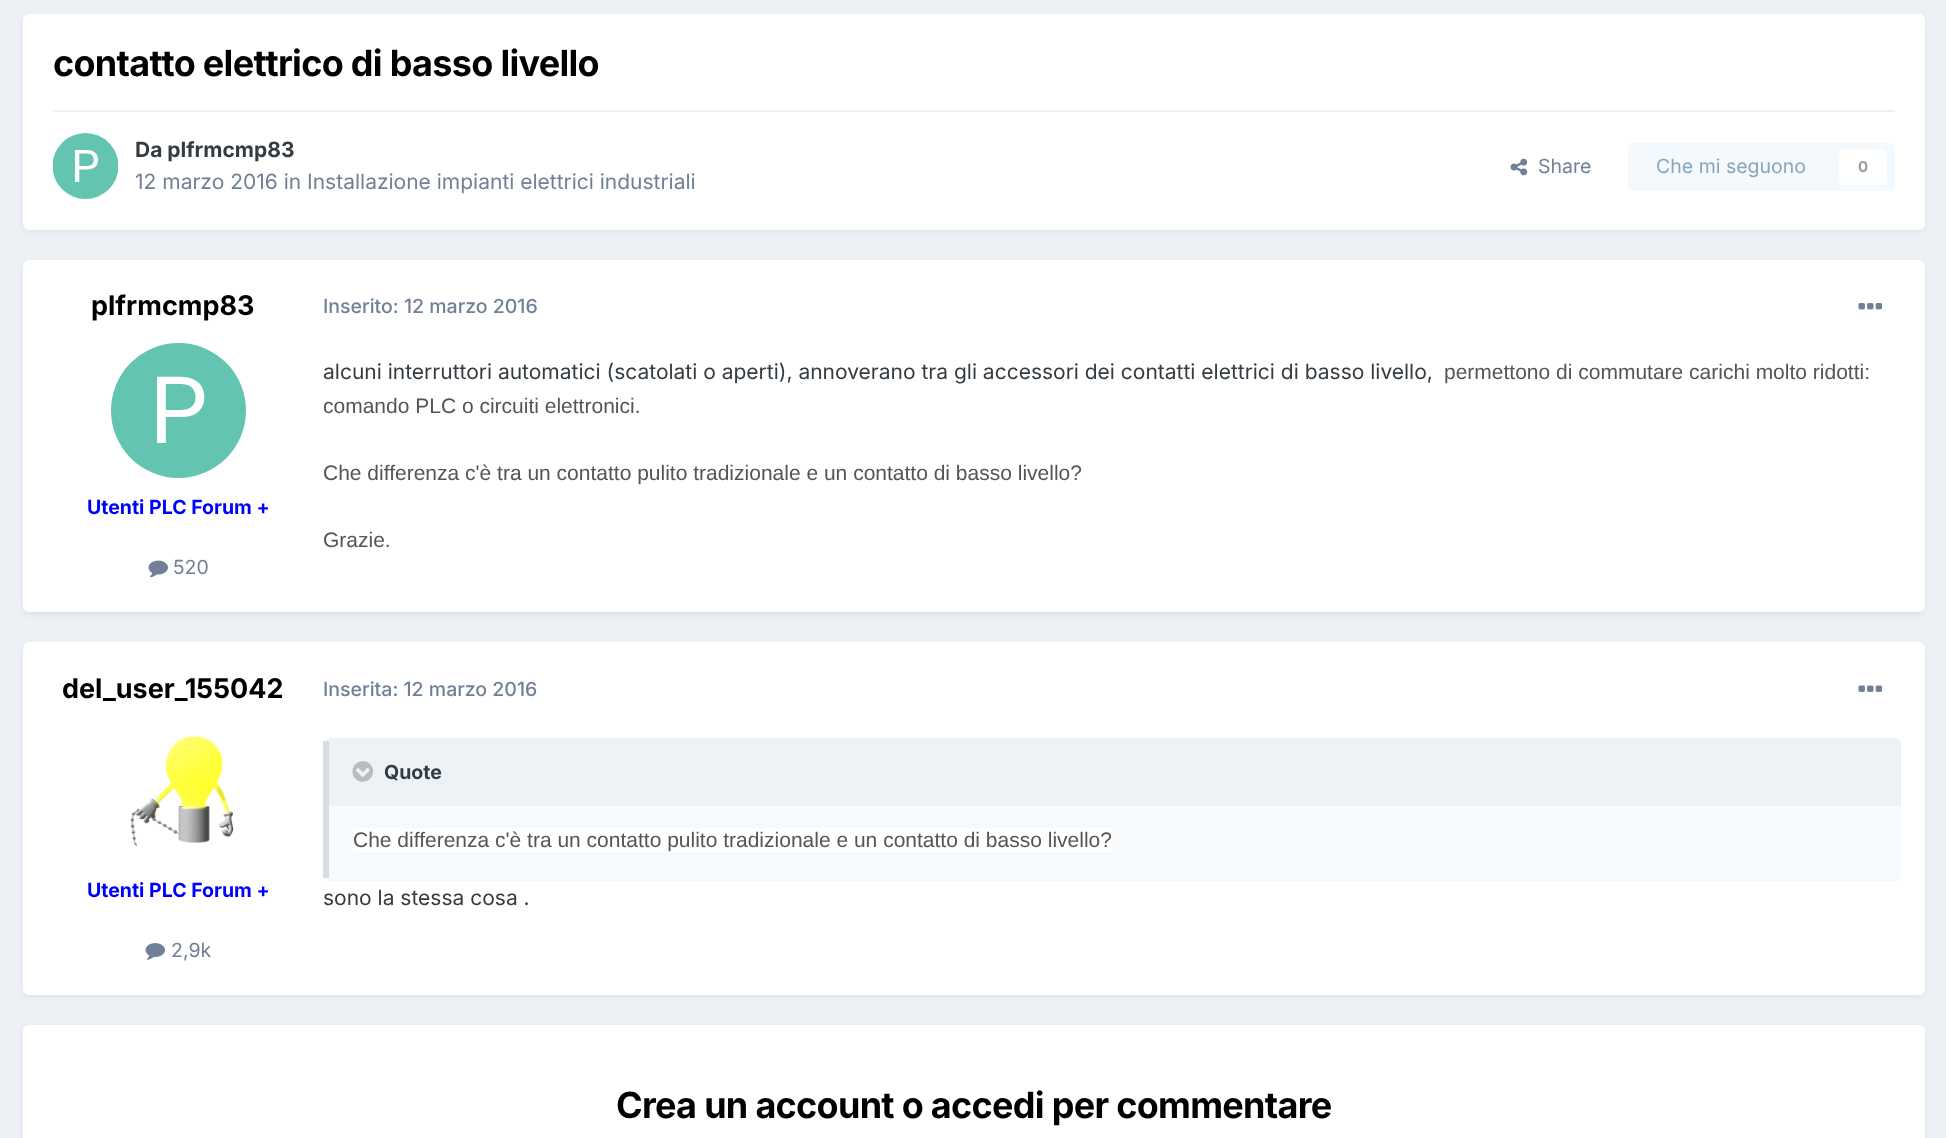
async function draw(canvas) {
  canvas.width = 1946
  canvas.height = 1138
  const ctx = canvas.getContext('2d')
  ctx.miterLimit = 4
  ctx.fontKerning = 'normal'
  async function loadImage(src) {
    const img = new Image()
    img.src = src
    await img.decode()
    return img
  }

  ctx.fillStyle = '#edf0f4'
  ctx.fillRect(0, 0, 1946, 1138)
  ctx.fillStyle = '#2d37481a'
  ctx.filter = 'blur(3px)'
  ctx.beginPath()
  ctx.roundRect(24, 18, 1899, 213, 5)
  ctx.fill()
  ctx.filter = 'none'
  ctx.fillStyle = '#fff'
  ctx.beginPath()
  ctx.roundRect(23, 14, 1902, 216, 6)
  ctx.fill()
  ctx.letterSpacing = '-0.7px'
  ctx.font = 'bold 36px Inter'
  ctx.fillStyle = '#000'
  ctx.fillText('contatto elettrico di basso livello', 53, 76)
  ctx.fillStyle = '#efeff0'
  ctx.fillRect(53, 110, 1842, 2)
  ctx.drawImage(await loadImage('image0.png'), 53, 133, 66, 66)
  ctx.letterSpacing = '0px'
  ctx.font = 'bold 21px Inter'
  ctx.fillStyle = '#353c41'
  ctx.fillText('Da plfrmcmp83', 135, 157)
  ctx.font = '21px Inter'
  ctx.fillStyle = '#718096'
  ctx.fillText('12 marzo 2016 in Installazione impianti elettrici industriali', 135, 189)
  ctx.drawImage(await loadImage('image1.png'), 1510, 158, 18, 18)
  ctx.font = '19.5px Inter'
  ctx.fillText('Share', 1538, 173)
  ctx.fillStyle = '#f4f9fd'
  ctx.beginPath()
  ctx.roundRect(1628, 143, 267, 48, 6)
  ctx.fill()
  ctx.fillStyle = '#87a6bc'
  ctx.fillText('Che mi seguono', 1656, 173)
  ctx.fillStyle = '#fff'
  ctx.beginPath()
  ctx.roundRect(1839, 149, 48, 36, 6)
  ctx.fill()
  ctx.font = 'bold 15px Inter'
  ctx.fillStyle = '#9a9ea0'
  ctx.fillText('0', 1858, 172)
  ctx.fillStyle = '#2d37481a'
  ctx.filter = 'blur(3px)'
  ctx.beginPath()
  ctx.roundRect(24, 264, 1899, 350, 5)
  ctx.fill()
  ctx.filter = 'none'
  ctx.fillStyle = '#fff'
  ctx.beginPath()
  ctx.roundRect(23, 260, 1902, 352, 6)
  ctx.fill()
  ctx.font = 'bold 27px Inter'
  ctx.fillStyle = '#000'
  ctx.fillText('plfrmcmp83', 91, 315)
  ctx.drawImage(await loadImage('image2.png'), 111, 343, 135, 135)
  ctx.font = 'bold 19.5px Inter'
  ctx.fillStyle = '#00f'
  ctx.fillText('Utenti PLC Forum +', 87, 514)
  ctx.drawImage(await loadImage('image3.png'), 148, 560, 20, 18)
  ctx.font = '19.5px Inter'
  ctx.fillStyle = '#718096'
  ctx.fillText('520', 173, 574)
  ctx.font = '500 19.5px Inter'
  ctx.fillText('Inserito: 12 marzo 2016', 323, 313)
  ctx.drawImage(await loadImage('image4.png'), 1858, 303, 25, 7)
  ctx.font = '21px Inter'
  ctx.fillStyle = '#353c41'
  ctx.fillText('alcuni interruttori automatici (scatolati o aperti), annoverano tra gli accessori dei contatti elettrici di basso livello,', 323, 379)
  ctx.font = '21px Liberation Sans'
  ctx.fillStyle = '#555'
  ctx.fillText('permettono di commutare carichi molto ridotti:', 1444, 379)
  ctx.fillText('comando PLC o circuiti elettronici.', 323, 413)
  ctx.fillText('Che differenza c\'è tra un contatto pulito tradizionale e un contatto di basso livello?', 323, 480)
  ctx.fillText('Grazie.', 323, 547)
  ctx.fillStyle = '#2d37481a'
  ctx.filter = 'blur(3px)'
  ctx.beginPath()
  ctx.roundRect(24, 647, 1899, 349, 5)
  ctx.fill()
  ctx.filter = 'none'
  ctx.fillStyle = '#fff'
  ctx.beginPath()
  ctx.roundRect(23, 642, 1902, 353, 6)
  ctx.fill()
  ctx.font = 'bold 27px Inter'
  ctx.fillStyle = '#000'
  ctx.fillText('del_user_155042', 62, 698)
  ctx.drawImage(await loadImage('image5.png'), 130, 736, 104, 110)
  ctx.font = 'bold 19.5px Inter'
  ctx.fillStyle = '#00f'
  ctx.fillText('Utenti PLC Forum +', 87, 897)
  ctx.drawImage(await loadImage('image6.png'), 145, 943, 20, 17)
  ctx.font = '19.5px Inter'
  ctx.fillStyle = '#718096'
  ctx.fillText('2,9k', 171, 957)
  ctx.font = '500 19.5px Inter'
  ctx.fillText('Inserita: 12 marzo 2016', 323, 696)
  ctx.drawImage(await loadImage('image7.png'), 1858, 685, 25, 7)
  ctx.fillStyle = '#f7fafc'
  ctx.beginPath()
  ctx.roundRect(323, 738, 1578, 143, 6)
  ctx.fill()
  ctx.fillStyle = '#2d374826'
  ctx.fillRect(323, 741, 6, 137)
  ctx.fillStyle = '#edf2f7'
  ctx.beginPath()
  ctx.roundRect(329, 738, 1572, 68, [0, 6, 0, 0])
  ctx.fill()
  ctx.drawImage(await loadImage('image8.png'), 352, 761, 21, 21)
  ctx.font = 'bold 19.5px Inter'
  ctx.fillStyle = '#353c41'
  ctx.fillText('Quote', 384, 779)
  ctx.fillStyle = '#fff'
  ctx.fillRect(353, 828, 759, 24)
  ctx.font = '21px Liberation Sans'
  ctx.fillStyle = '#555'
  ctx.fillText('Che differenza c\'è tra un contatto pulito tradizionale e un contatto di basso livello?', 353, 847)
  ctx.font = '21px Inter'
  ctx.fillStyle = '#353c41'
  ctx.fillText('sono la stessa cosa .', 323, 905)
  ctx.fillStyle = '#2d37481a'
  ctx.filter = 'blur(3px)'
  ctx.beginPath()
  ctx.roundRect(24, 1029, 1899, 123, 5)
  ctx.fill()
  ctx.filter = 'none'
  ctx.fillStyle = '#fff'
  ctx.beginPath()
  ctx.roundRect(23, 1025, 1902, 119, 6)
  ctx.fill()
  ctx.letterSpacing = '-0.7px'
  ctx.font = 'bold 36px Inter'
  ctx.fillStyle = '#000'
  ctx.fillText('Crea un account o accedi per commentare', 616, 1118)
}

draw(document.querySelector('canvas'))
